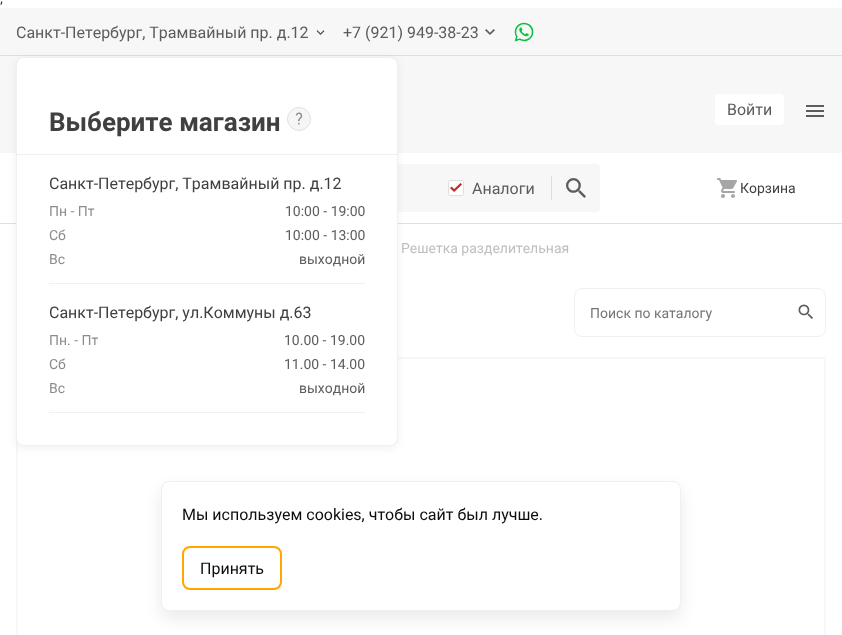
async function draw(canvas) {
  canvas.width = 842
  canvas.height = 635
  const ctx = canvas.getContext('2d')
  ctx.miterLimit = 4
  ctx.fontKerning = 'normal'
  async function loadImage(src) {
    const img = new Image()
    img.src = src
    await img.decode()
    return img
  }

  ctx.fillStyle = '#fff'
  ctx.fillRect(0, 0, 842, 635)
  ctx.font = '14px Roboto'
  ctx.fillStyle = '#333'
  ctx.fillText(';', 0, 3)
  ctx.fillStyle = '#f7f7f7'
  ctx.fillRect(0, 8, 842, 47)
  ctx.fillStyle = '#dfdfdf'
  ctx.fillRect(0, 55, 842, 1)
  ctx.font = '16px Roboto'
  ctx.fillStyle = '#5c5c5c'
  ctx.fillText('Санкт-Петербург, Трамвайный пр. д.12', 16, 38)
  ctx.drawImage(await loadImage('image0.png'), 316, 30, 9, 6)
  ctx.fillStyle = '#f7f7f7'
  ctx.fillRect(0, 56, 842, 97)
  ctx.fillStyle = '#dfdfdf'
  ctx.fillRect(0, 223, 842, 1)
  ctx.fillStyle = '#f7f7f7'
  ctx.beginPath()
  ctx.roundRect(16, 164, 584, 48, 4)
  ctx.fill()
  ctx.strokeStyle = '#f7f7f7'
  ctx.lineWidth = 2
  ctx.strokeRect(17, 358, 808, 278)
  ctx.fillStyle = '#0000000f'
  ctx.filter = 'blur(4px)'
  ctx.beginPath()
  ctx.roundRect(16, 59, 382, 389, 8)
  ctx.fill()
  ctx.filter = 'none'
  ctx.fillStyle = '#fff'
  ctx.beginPath()
  ctx.roundRect(16.5, 57.5, 381, 388, 7.5)
  ctx.fill()
  ctx.strokeStyle = '#f0f0f0'
  ctx.lineWidth = 1
  ctx.stroke()
  ctx.font = 'bold 26px Roboto'
  ctx.fillStyle = '#404040'
  ctx.fillText('Выберите магазин', 49, 131)
  ctx.beginPath()
  ctx.arc(299, 119, 11.5, 0, 2 * Math.PI)
  ctx.strokeStyle = '#dfdfdf'
  ctx.stroke()
  ctx.drawImage(await loadImage('image1.png'), 288, 108, 22, 22)
  ctx.fillStyle = '#f0f0f0'
  ctx.fillRect(17, 154, 380, 1)
  ctx.fillRect(49, 283, 316, 1)
  ctx.font = '16px Roboto'
  ctx.fillStyle = '#404040'
  ctx.fillText('Санкт-Петербург, Трамвайный пр. д.12', 49, 189)
  ctx.font = '14px Roboto'
  ctx.fillStyle = '#8c8c8c'
  ctx.fillText('Пн - Пт', 49, 216)
  ctx.fillStyle = '#5c5c5c'
  ctx.fillText('10:00 - 19:00', 285, 216)
  ctx.fillStyle = '#8c8c8c'
  ctx.fillText('Сб', 49, 240)
  ctx.fillStyle = '#5c5c5c'
  ctx.fillText('10:00 - 13:00', 285, 240)
  ctx.fillStyle = '#8c8c8c'
  ctx.fillText('Вс', 49, 264)
  ctx.fillStyle = '#5c5c5c'
  ctx.fillText('выходной', 299, 264)
  ctx.fillStyle = '#f0f0f0'
  ctx.fillRect(49, 412, 316, 1)
  ctx.font = '16px Roboto'
  ctx.fillStyle = '#404040'
  ctx.fillText('Санкт-Петербург, ул.Коммуны д.63', 49, 318)
  ctx.font = '14px Roboto'
  ctx.fillStyle = '#8c8c8c'
  ctx.fillText('Пн. - Пт', 49, 345)
  ctx.fillStyle = '#5c5c5c'
  ctx.fillText('10.00 - 19.00', 284, 345)
  ctx.fillStyle = '#8c8c8c'
  ctx.fillText('Сб', 49, 369)
  ctx.fillStyle = '#5c5c5c'
  ctx.fillText('11.00 - 14.00', 284, 369)
  ctx.fillStyle = '#8c8c8c'
  ctx.fillText('Вс', 49, 393)
  ctx.fillStyle = '#5c5c5c'
  ctx.fillText('выходной', 299, 393)
  ctx.font = '16px Roboto'
  ctx.fillText('+7 (921) 949-38-23', 343, 38)
  ctx.drawImage(await loadImage('image2.png'), 485, 29, 10, 6)
  ctx.drawImage(await loadImage('image3.png'), 514, 22, 20, 20)
  ctx.fillStyle = '#fff'
  ctx.beginPath()
  ctx.roundRect(715, 94, 69, 31, 4)
  ctx.fill()
  ctx.fillStyle = '#5c5c5c'
  ctx.fillText('Войти', 727, 115)
  ctx.fillRect(806, 110, 18, 2)
  ctx.fillRect(806, 105, 18, 2)
  ctx.fillRect(806, 115, 18, 2)
  ctx.fillStyle = '#dfdfdf'
  ctx.fillRect(551, 176, 1, 24)
  ctx.fillStyle = '#fff'
  ctx.beginPath()
  ctx.roundRect(448, 180, 16, 16, 2)
  ctx.fill()
  ctx.drawImage(await loadImage('image4.png'), 450, 183, 12, 9)
  ctx.beginPath()
  ctx.roundRect(448.5, 180.5, 15, 15, 1.5)
  ctx.stroke()
  ctx.fillStyle = '#5c5c5c'
  ctx.fillText('Аналоги', 472, 194)
  ctx.drawImage(await loadImage('image5.png'), 566, 178, 20, 20)
  ctx.drawImage(await loadImage('image6.png'), 717, 178, 20, 20)
  ctx.font = '14px Roboto'
  ctx.fillStyle = '#404040'
  ctx.fillText('Корзина', 740, 193)
  ctx.fillStyle = '#bebebe'
  ctx.fillText('Решетка разделительная', 401, 253)
  ctx.beginPath()
  ctx.roundRect(574.5, 288.5, 251, 48, 7.5)
  ctx.strokeStyle = '#f0f0f0'
  ctx.stroke()
  ctx.fillStyle = '#757575'
  ctx.fillText('Поиск по каталогу', 590, 318)
  ctx.drawImage(await loadImage('image7.png'), 798, 304, 15, 15)
  ctx.fillStyle = '#00000014'
  ctx.filter = 'blur(8px)'
  ctx.beginPath()
  ctx.roundRect(161, 489, 520, 130, 8)
  ctx.fill()
  ctx.filter = 'none'
  ctx.fillStyle = '#fff'
  ctx.beginPath()
  ctx.roundRect(161.5, 481.5, 519, 129, 7.5)
  ctx.fill()
  ctx.stroke()
  ctx.font = '16px Roboto'
  ctx.fillStyle = '#0d0d0d'
  ctx.fillText('Мы используем cookies, чтобы сайт был лучше.', 182, 520)
  ctx.beginPath()
  ctx.roundRect(183, 547, 98, 42, 7)
  ctx.strokeStyle = '#ffa500'
  ctx.lineWidth = 2
  ctx.stroke()
  ctx.fillText('Принять', 200, 574)
}

draw(document.querySelector('canvas'))
